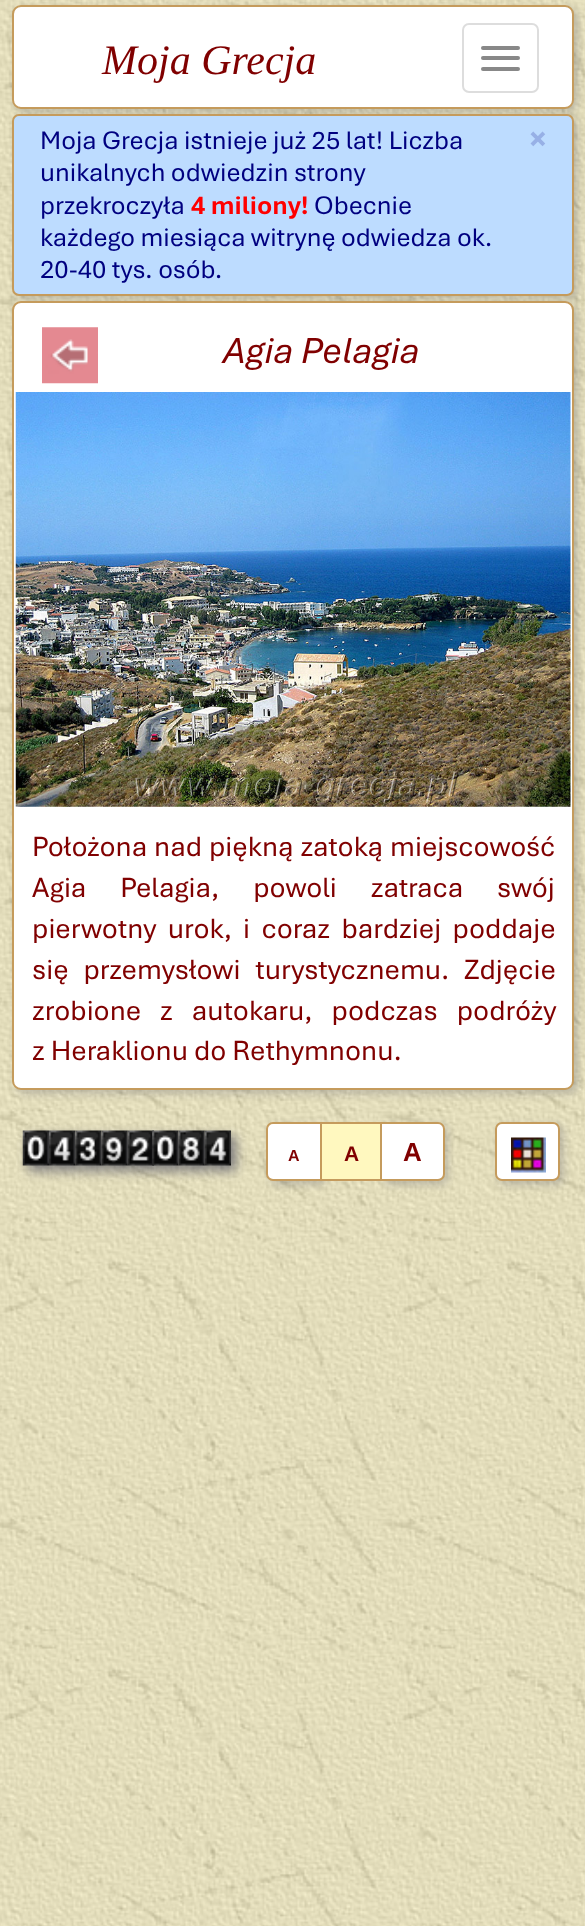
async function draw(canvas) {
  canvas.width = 585
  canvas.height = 1926
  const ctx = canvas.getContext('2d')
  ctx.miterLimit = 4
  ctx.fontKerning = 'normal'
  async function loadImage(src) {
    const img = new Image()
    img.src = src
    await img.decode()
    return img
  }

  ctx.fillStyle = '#fff'
  ctx.fillRect(0, 0, 585, 1926)
  ctx.drawImage(await loadImage('image0.png'), 0, 0, 585, 1926)
  ctx.fillStyle = '#42445a40'
  ctx.filter = 'blur(4.5px)'
  ctx.beginPath()
  ctx.roundRect(16, 9, 562, 103, 9)
  ctx.fill()
  ctx.filter = 'none'
  ctx.fillStyle = '#fff'
  ctx.beginPath()
  ctx.roundRect(13, 6, 560, 102, 8)
  ctx.fill()
  ctx.strokeStyle = '#c59b5c'
  ctx.lineWidth = 2
  ctx.stroke()
  ctx.font = 'italic 42px Liberation Serif'
  ctx.fillStyle = '#800000'
  ctx.fillText('Moja Grecja', 102, 74)
  ctx.beginPath()
  ctx.roundRect(463, 24, 75, 68, 6)
  ctx.strokeStyle = '#ddd'
  ctx.stroke()
  ctx.fillStyle = '#888'
  ctx.beginPath()
  ctx.roundRect(481, 46, 39, 4, 2)
  ctx.fill()
  ctx.beginPath()
  ctx.roundRect(481, 56, 39, 4, 2)
  ctx.fill()
  ctx.beginPath()
  ctx.roundRect(481, 67, 39, 4, 2)
  ctx.fill()
  ctx.fillStyle = '#42445a40'
  ctx.filter = 'blur(4.5px)'
  ctx.beginPath()
  ctx.roundRect(16, 117, 562, 182, 7)
  ctx.fill()
  ctx.filter = 'none'
  ctx.fillStyle = '#bddcff'
  ctx.beginPath()
  ctx.roundRect(13, 115, 560, 180, 6)
  ctx.fill()
  ctx.strokeStyle = '#c59b5c'
  ctx.stroke()
  ctx.font = '26.8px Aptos'
  ctx.fillStyle = '#000080'
  ctx.fillText('Moja Grecja istnieje już 25 lat! Liczba', 40, 149)
  ctx.font = 'bold 37px Aptos'
  ctx.fillStyle = '#97b0e6'
  ctx.fillText('×', 528, 151)
  ctx.font = '26.8px Aptos'
  ctx.fillStyle = '#000080'
  ctx.fillText('unikalnych odwiedzin strony', 40, 181)
  ctx.fillText('przekroczyła', 40, 214)
  ctx.font = 'bold 26.8px Aptos'
  ctx.fillStyle = '#f00'
  ctx.fillText('4 miliony!', 191, 214)
  ctx.font = '26.8px Aptos'
  ctx.fillStyle = '#000080'
  ctx.fillText('Obecnie', 314, 214)
  ctx.fillText('każdego miesiąca witrynę odwiedza ok.', 40, 246)
  ctx.fillText('20-40 tys. osób.', 40, 278)
  ctx.fillStyle = '#42445a40'
  ctx.filter = 'blur(4.5px)'
  ctx.beginPath()
  ctx.roundRect(16, 305, 562, 789, 9)
  ctx.fill()
  ctx.filter = 'none'
  ctx.fillStyle = '#fff'
  ctx.beginPath()
  ctx.roundRect(13, 302, 560, 787, 8)
  ctx.fill()
  ctx.stroke()
  ctx.drawImage(await loadImage('image1.png'), 42, 327, 56, 57)
  ctx.font = 'italic 38px Aptos'
  ctx.fillStyle = '#800000'
  ctx.fillText('Agia Pelagia', 223, 363)
  ctx.drawImage(await loadImage('image2.png'), 15, 392, 556, 415)
  ctx.wordSpacing = '1px'
  ctx.font = '29.2px Aptos'
  ctx.fillText('Położona nad piękną zatoką miejscowość', 32, 856)
  ctx.wordSpacing = '28px'
  ctx.fillText('Agia Pelagia, powoli zatraca swój', 32, 897)
  ctx.wordSpacing = '5.5px'
  ctx.fillText('pierwotny urok,', 32, 938)
  ctx.fillText('i coraz bardziej poddaje', 243, 938)
  ctx.wordSpacing = '9px'
  ctx.fillText('się przemysłowi turystycznemu. Zdjęcie', 32, 979)
  ctx.wordSpacing = '13px'
  ctx.fillText('zrobione z autokaru, podczas podróży', 32, 1020)
  ctx.wordSpacing = '0px'
  ctx.fillText('z Heraklionu do Rethymnonu.', 32, 1060)
  ctx.fillStyle = '#42445aa6'
  ctx.filter = 'blur(6px)'
  ctx.beginPath()
  ctx.rect(28, 1136, 26, 35)
  ctx.fill()
  ctx.filter = 'none'
  ctx.drawImage(await loadImage('image3.png'), 22, 1130, 27, 36)
  ctx.filter = 'blur(6px)'
  ctx.beginPath()
  ctx.rect(54, 1136, 27, 35)
  ctx.fill()
  ctx.filter = 'none'
  ctx.drawImage(await loadImage('image4.png'), 49, 1130, 27, 36)
  ctx.filter = 'blur(6px)'
  ctx.beginPath()
  ctx.rect(81, 1136, 26, 35)
  ctx.fill()
  ctx.filter = 'none'
  ctx.drawImage(await loadImage('image5.png'), 75, 1130, 27, 36)
  ctx.filter = 'blur(6px)'
  ctx.beginPath()
  ctx.rect(107, 1136, 26, 35)
  ctx.fill()
  ctx.filter = 'none'
  ctx.drawImage(await loadImage('image6.png'), 101, 1130, 27, 36)
  ctx.filter = 'blur(6px)'
  ctx.beginPath()
  ctx.rect(133, 1136, 26, 35)
  ctx.fill()
  ctx.filter = 'none'
  ctx.drawImage(await loadImage('image7.png'), 127, 1130, 27, 36)
  ctx.filter = 'blur(6px)'
  ctx.beginPath()
  ctx.rect(158, 1136, 26, 35)
  ctx.fill()
  ctx.filter = 'none'
  ctx.drawImage(await loadImage('image8.png'), 152, 1130, 27, 36)
  ctx.filter = 'blur(6px)'
  ctx.beginPath()
  ctx.rect(184, 1136, 26, 35)
  ctx.fill()
  ctx.filter = 'none'
  ctx.drawImage(await loadImage('image9.png'), 178, 1130, 27, 36)
  ctx.filter = 'blur(6px)'
  ctx.beginPath()
  ctx.rect(210, 1136, 26, 35)
  ctx.fill()
  ctx.filter = 'none'
  ctx.drawImage(await loadImage('image10.png'), 204, 1130, 27, 36)
  ctx.fillStyle = '#42445a40'
  ctx.filter = 'blur(4.5px)'
  ctx.beginPath()
  ctx.roundRect(270, 1125, 56, 60, 7)
  ctx.fill()
  ctx.filter = 'none'
  ctx.fillStyle = '#fff'
  ctx.beginPath()
  ctx.roundRect(267, 1123, 54, 57, [6, 0, 0, 6])
  ctx.fill()
  ctx.stroke()
  ctx.font = 'bold 16px Liberation Sans'
  ctx.fillStyle = '#800000'
  ctx.fillText('A', 288, 1161)
  ctx.fillStyle = '#42445a40'
  ctx.filter = 'blur(4.5px)'
  ctx.beginPath()
  ctx.roundRect(383, 1125, 65, 60, 7)
  ctx.fill()
  ctx.filter = 'none'
  ctx.fillStyle = '#fff'
  ctx.beginPath()
  ctx.roundRect(381, 1123, 63, 57, [0, 6, 6, 0])
  ctx.fill()
  ctx.stroke()
  ctx.fillStyle = '#fff8bf'
  ctx.beginPath()
  ctx.rect(321, 1123, 60, 57)
  ctx.fill()
  ctx.stroke()
  ctx.font = 'bold 21px Liberation Sans'
  ctx.fillStyle = '#800000'
  ctx.fillText('A', 344, 1161)
  ctx.font = 'bold 26px Liberation Sans'
  ctx.fillText('A', 403, 1161)
  ctx.fillStyle = '#42445a40'
  ctx.filter = 'blur(4.5px)'
  ctx.beginPath()
  ctx.roundRect(499, 1125, 65, 60, 7)
  ctx.fill()
  ctx.filter = 'none'
  ctx.fillStyle = '#fff'
  ctx.beginPath()
  ctx.roundRect(496, 1123, 63, 57, 6)
  ctx.fill()
  ctx.stroke()
  ctx.drawImage(await loadImage('image11.png'), 511, 1137, 35, 36)
}

draw(document.querySelector('canvas'))
